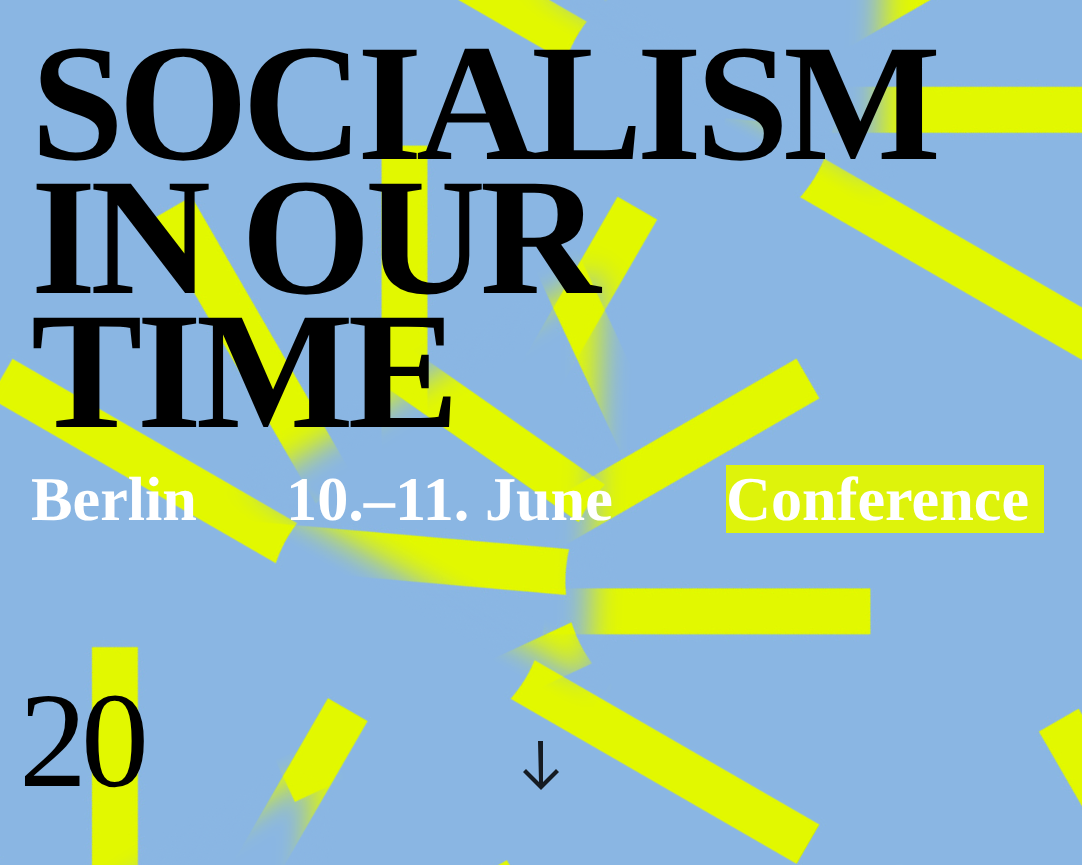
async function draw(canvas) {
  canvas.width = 1082
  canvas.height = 865
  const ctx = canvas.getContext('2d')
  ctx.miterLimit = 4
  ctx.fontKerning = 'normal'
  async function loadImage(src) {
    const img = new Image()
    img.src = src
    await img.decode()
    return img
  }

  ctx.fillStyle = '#fff'
  ctx.fillRect(0, 0, 1082, 865)
  ctx.drawImage(await loadImage('image0.png'), 0, 0, 1082, 865)
  ctx.letterSpacing = '-5.75px'
  ctx.font = 'bold 167px Liberation Serif'
  ctx.fillStyle = '#000'
  ctx.fillText('SOCIALISM', 31, 159)
  ctx.fillText('IN OUR', 31, 293)
  ctx.fillText('TIME', 31, 427)
  ctx.letterSpacing = '0px'
  ctx.font = 'bold 62.25px Liberation Serif'
  ctx.fillStyle = '#fff'
  ctx.fillText('Berlin', 31, 520)
  ctx.letterSpacing = '-6px'
  ctx.font = '136px Liberation Serif'
  ctx.fillStyle = '#000'
  ctx.fillText('20', 19, 786)
  ctx.letterSpacing = '0px'
  ctx.font = 'bold 62.25px Liberation Serif'
  ctx.fillStyle = '#fff'
  ctx.fillText('10.–11. June', 286, 520)
  ctx.fillStyle = '#def30b'
  ctx.fillRect(726, 465, 318, 68)
  ctx.fillStyle = '#fff'
  ctx.fillText('Conference', 726, 520)
  ctx.fillStyle = '#151b22'
  ctx.beginPath()
  ctx.moveTo(538, 741)
  ctx.lineTo(539, 782)
  ctx.lineTo(526, 769)
  ctx.lineTo(523, 772)
  ctx.lineTo(541, 790)
  ctx.lineTo(559, 772)
  ctx.lineTo(556, 769)
  ctx.lineTo(543, 782)
  ctx.lineTo(543, 741)
  ctx.closePath()
  ctx.fill()
}

draw(document.querySelector('canvas'))
